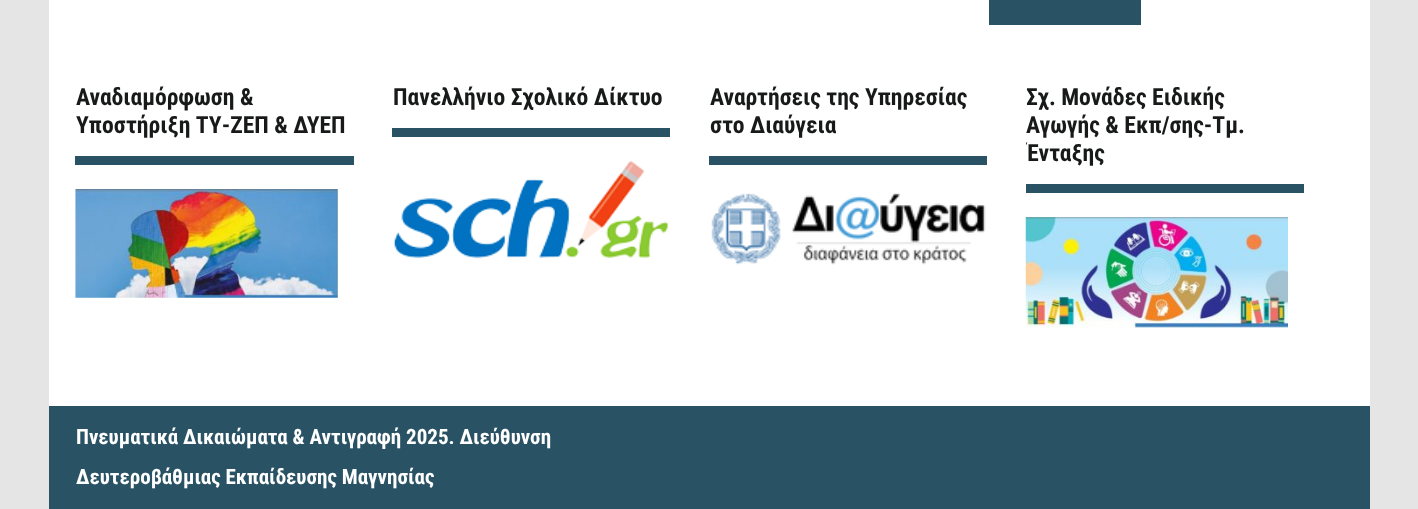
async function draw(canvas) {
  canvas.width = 1418
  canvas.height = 509
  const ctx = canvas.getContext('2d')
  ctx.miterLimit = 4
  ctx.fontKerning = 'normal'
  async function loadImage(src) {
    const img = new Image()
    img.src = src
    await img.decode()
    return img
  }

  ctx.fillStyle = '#e5e5e5'
  ctx.fillRect(0, 0, 1418, 509)
  ctx.fillStyle = '#fff'
  ctx.fillRect(49, 0, 1321, 406)
  ctx.fillStyle = '#295264'
  ctx.fillRect(989, 0, 152, 25)
  ctx.fillRect(75, 156, 279, 9)
  ctx.font = 'bold 23.6px Roboto Condensed'
  ctx.fillStyle = '#181919'
  ctx.fillText('Αναδιαμόρφωση &', 76, 105)
  ctx.fillText('Υποστήριξη ΤΥ-ΖΕΠ & ΔΥΕΠ', 76, 133)
  ctx.drawImage(await loadImage('image0.png'), 75, 189, 263, 109)
  ctx.fillStyle = '#295264'
  ctx.fillRect(392, 128, 278, 9)
  ctx.fillStyle = '#181919'
  ctx.fillText('Πανελλήνιο Σχολικό Δίκτυο', 393, 105)
  ctx.drawImage(await loadImage('image1.png'), 393, 160, 276, 99)
  ctx.fillStyle = '#295264'
  ctx.fillRect(709, 156, 278, 9)
  ctx.fillStyle = '#181919'
  ctx.fillText('Αναρτήσεις της Υπηρεσίας', 710, 105)
  ctx.fillText('στο Διαύγεια', 710, 133)
  ctx.drawImage(await loadImage('image2.png'), 711, 193, 275, 72)
  ctx.fillStyle = '#295264'
  ctx.fillRect(1026, 184, 278, 9)
  ctx.fillStyle = '#181919'
  ctx.fillText('Σχ. Μονάδες Ειδικής', 1026, 105)
  ctx.fillText('Αγωγής & Εκπ/σης-Τμ.', 1026, 133)
  ctx.save()
  ctx.beginPath()
  ctx.rect(1026, 82, 292, 324)
  ctx.clip()
  ctx.fillText('Ένταξης', 1026, 161)
  ctx.restore()
  ctx.drawImage(await loadImage('image3.png'), 1025, 217, 263, 111)
  ctx.fillStyle = '#295264'
  ctx.fillRect(49, 406, 1321, 103)
  ctx.font = 'bold 21px Roboto Condensed'
  ctx.fillStyle = '#fff'
  ctx.fillText('Πνευματικά Δικαιώματα & Αντιγραφή 2025. Διεύθυνση', 76, 444)
  ctx.fillText('Δευτεροβάθμιας Εκπαίδευσης Μαγνησίας', 76, 484)
}

draw(document.querySelector('canvas'))
